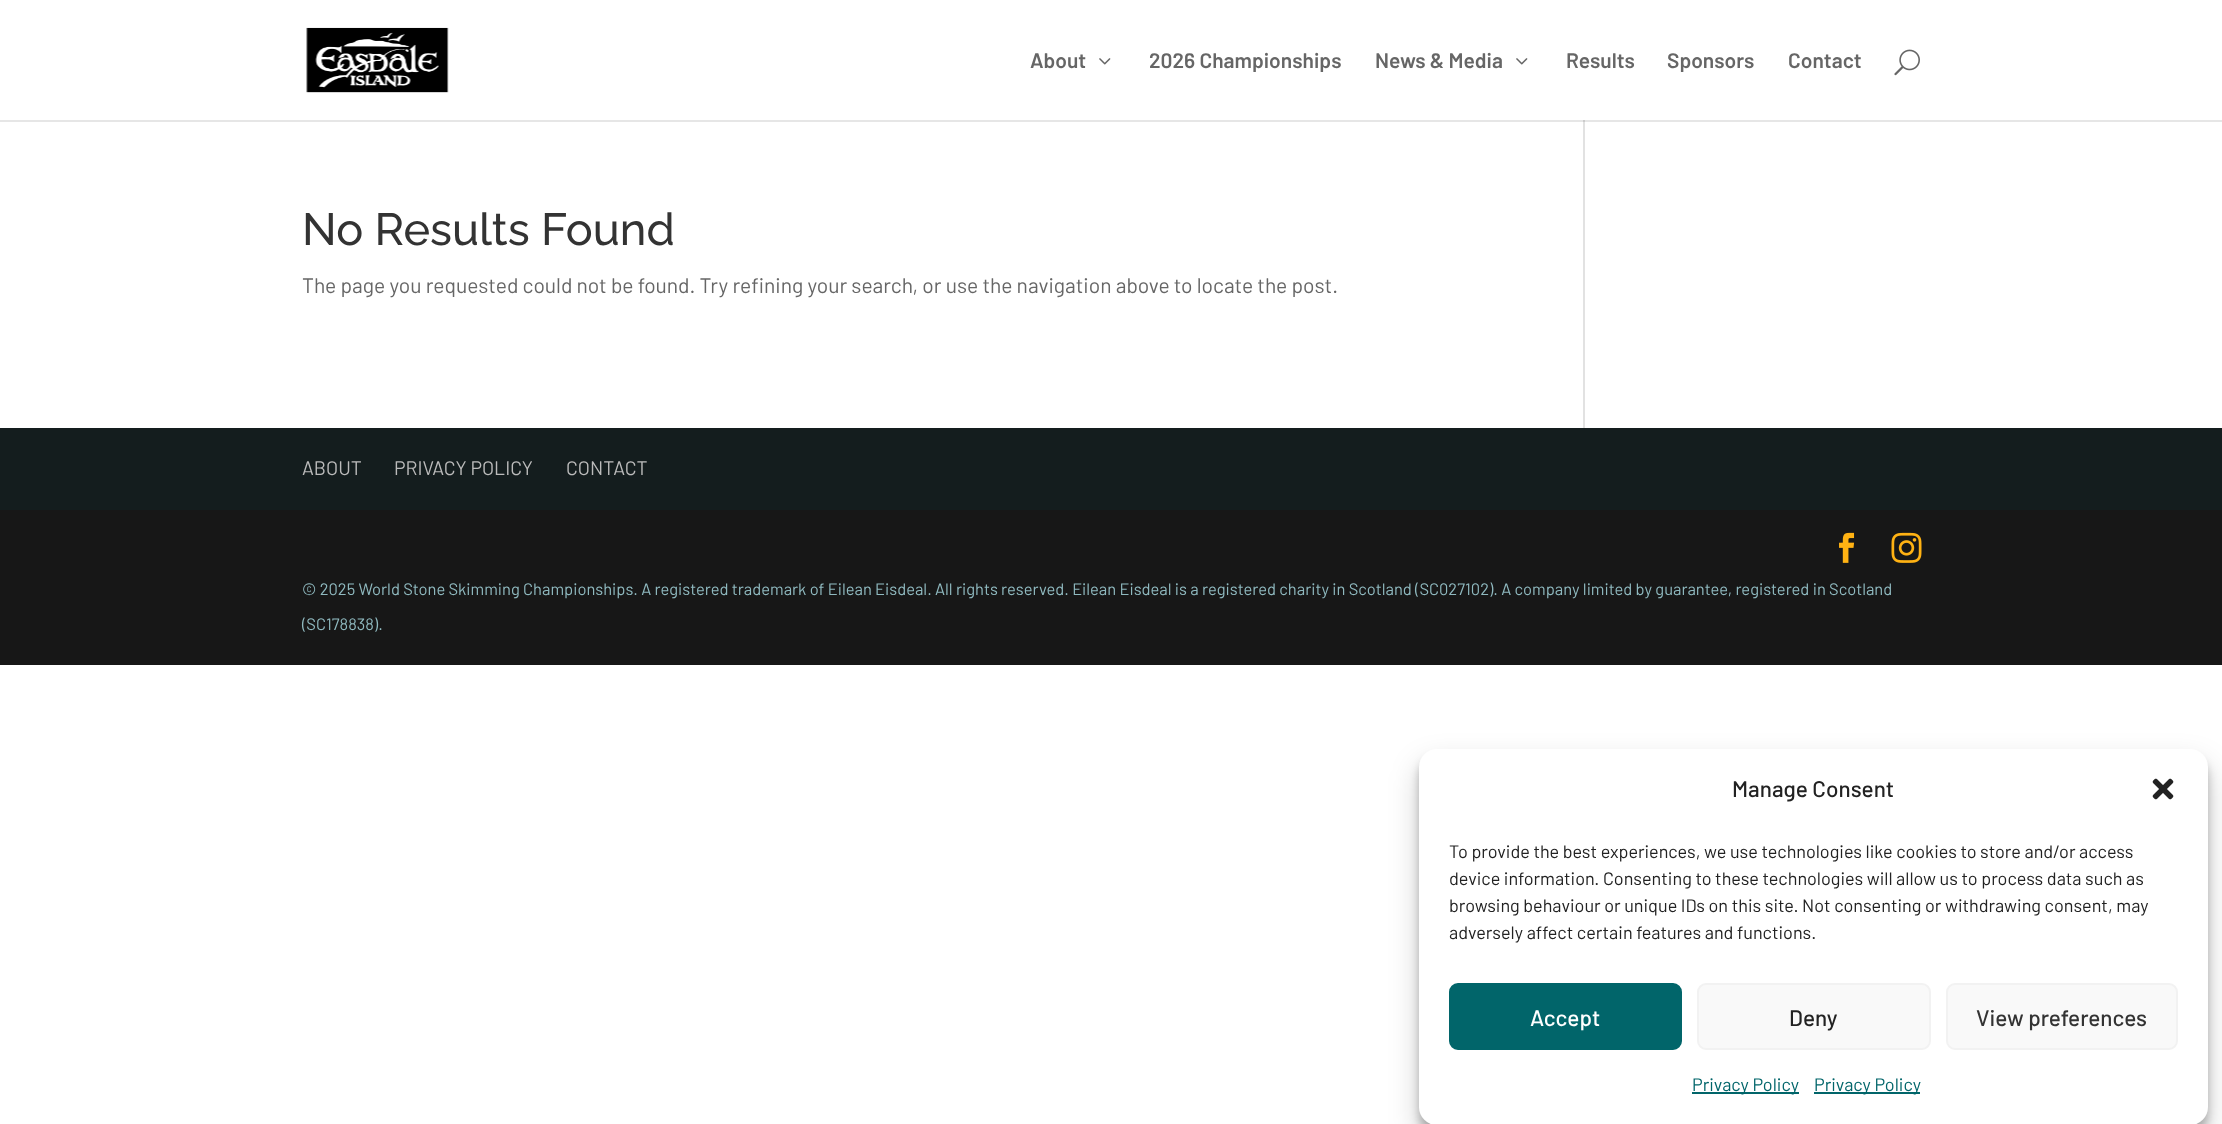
async function draw(canvas) {
  canvas.width = 2222
  canvas.height = 1124
  const ctx = canvas.getContext('2d')
  ctx.miterLimit = 4
  ctx.fontKerning = 'normal'
  async function loadImage(src) {
    const img = new Image()
    img.src = src
    await img.decode()
    return img
  }

  ctx.fillStyle = '#fff'
  ctx.fillRect(0, 0, 2222, 1124)
  ctx.fillStyle = '#e6e6e6'
  ctx.fillRect(0, 120, 2222, 2)
  ctx.drawImage(await loadImage('image0.png'), 306, 27, 143, 66)
  ctx.font = '600 21px Barlow'
  ctx.fillStyle = '#666'
  ctx.fillText('About', 1030, 68)
  ctx.drawImage(await loadImage('image1.png'), 1099, 58, 12, 7)
  ctx.fillText('2026 Championships', 1149, 68)
  ctx.fillText('News & Media', 1375, 68)
  ctx.drawImage(await loadImage('image1.png'), 1516, 58, 12, 7)
  ctx.fillText('Results', 1566, 68)
  ctx.fillText('Sponsors', 1667, 68)
  ctx.fillText('Contact', 1788, 68)
  ctx.drawImage(await loadImage('image2.png'), 1894, 49, 26, 27)
  ctx.font = '100 45px Raleway'
  ctx.fillStyle = '#333'
  ctx.fillText('No Results Found', 302, 245)
  ctx.font = '21px Barlow'
  ctx.fillStyle = '#666'
  ctx.fillText('The page you requested could not be found. Try refining your search, or use the navigation above to locate the post.', 302, 293)
  ctx.fillStyle = '#e2e2e2'
  ctx.fillRect(1583, 120, 2, 308)
  ctx.fillStyle = '#cbcbcb'
  ctx.fillRect(1583, 120, 2, 2)
  ctx.fillStyle = '#141d1e'
  ctx.fillRect(0, 428, 2222, 82)
  ctx.font = '19.5px Barlow'
  ctx.fillStyle = '#bbb'
  ctx.fillText('ABOUT', 302, 475)
  ctx.fillText('PRIVACY POLICY', 394, 475)
  ctx.fillText('CONTACT', 566, 475)
  ctx.fillStyle = '#171717'
  ctx.fillRect(0, 510, 2222, 155)
  ctx.drawImage(await loadImage('image3.png'), 1839, 532, 16, 31)
  ctx.drawImage(await loadImage('image4.png'), 1891, 532, 31, 31)
  ctx.font = '16.5px Barlow'
  ctx.fillStyle = '#8fb9bf'
  ctx.fillText('© 2025 World Stone Skimming Championships. A registered trademark of Eilean Eisdeal. All rights reserved. Eilean Eisdeal is a registered charity in Scotland (SC027102). A company limited by guarantee, registered in Scotland', 302, 595)
  ctx.fillText('(SC178838).', 302, 630)
  ctx.fillStyle = '#0000003b'
  ctx.filter = 'blur(4.5px)'
  ctx.beginPath()
  ctx.roundRect(1419, 758, 789, 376, 18)
  ctx.fill()
  ctx.filter = 'none'
  ctx.fillStyle = '#00000030'
  ctx.filter = 'blur(15px)'
  ctx.beginPath()
  ctx.roundRect(1419, 764, 789, 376, 18)
  ctx.fill()
  ctx.filter = 'none'
  ctx.fillStyle = '#fff'
  ctx.beginPath()
  ctx.roundRect(1419, 749, 789, 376, 18)
  ctx.fill()
  ctx.font = '500 22.5px Barlow'
  ctx.fillStyle = '#222'
  ctx.fillText('Manage Consent', 1732, 797)
  ctx.drawImage(await loadImage('image5.png'), 2152, 778, 22, 22)
  ctx.font = '18px Barlow'
  ctx.fillText('To provide the best experiences, we use technologies like cookies to store and/or access', 1449, 858)
  ctx.fillText('device information. Consenting to these technologies will allow us to process data such as', 1449, 885)
  ctx.fillText('browsing behaviour or unique IDs on this site. Not consenting or withdrawing consent, may', 1449, 912)
  ctx.fillText('adversely affect certain features and functions.', 1449, 939)
  ctx.fillStyle = '#01656a'
  ctx.beginPath()
  ctx.roundRect(1450, 984, 231, 65, 8)
  ctx.fill()
  ctx.strokeStyle = '#01656a'
  ctx.lineWidth = 2
  ctx.stroke()
  ctx.font = '500 22.5px Barlow'
  ctx.fillStyle = '#fff'
  ctx.fillText('Accept', 1530, 1026)
  ctx.fillStyle = '#f9f9f9'
  ctx.beginPath()
  ctx.roundRect(1698, 984, 232, 65, 8)
  ctx.fill()
  ctx.strokeStyle = '#f2f2f2'
  ctx.stroke()
  ctx.fillStyle = '#222'
  ctx.fillText('Deny', 1789, 1026)
  ctx.fillStyle = '#f9f9f9'
  ctx.beginPath()
  ctx.roundRect(1947, 984, 230, 65, 8)
  ctx.fill()
  ctx.stroke()
  ctx.fillStyle = '#333'
  ctx.fillText('View preferences', 1976, 1026)
  ctx.fillStyle = '#01656a'
  ctx.fillRect(1692, 1092, 107, 2)
  ctx.font = '18px Barlow'
  ctx.fillText('Privacy Policy', 1692, 1091)
  ctx.fillRect(1814, 1092, 106, 2)
  ctx.fillText('Privacy Policy', 1814, 1091)
}

draw(document.querySelector('canvas'))
